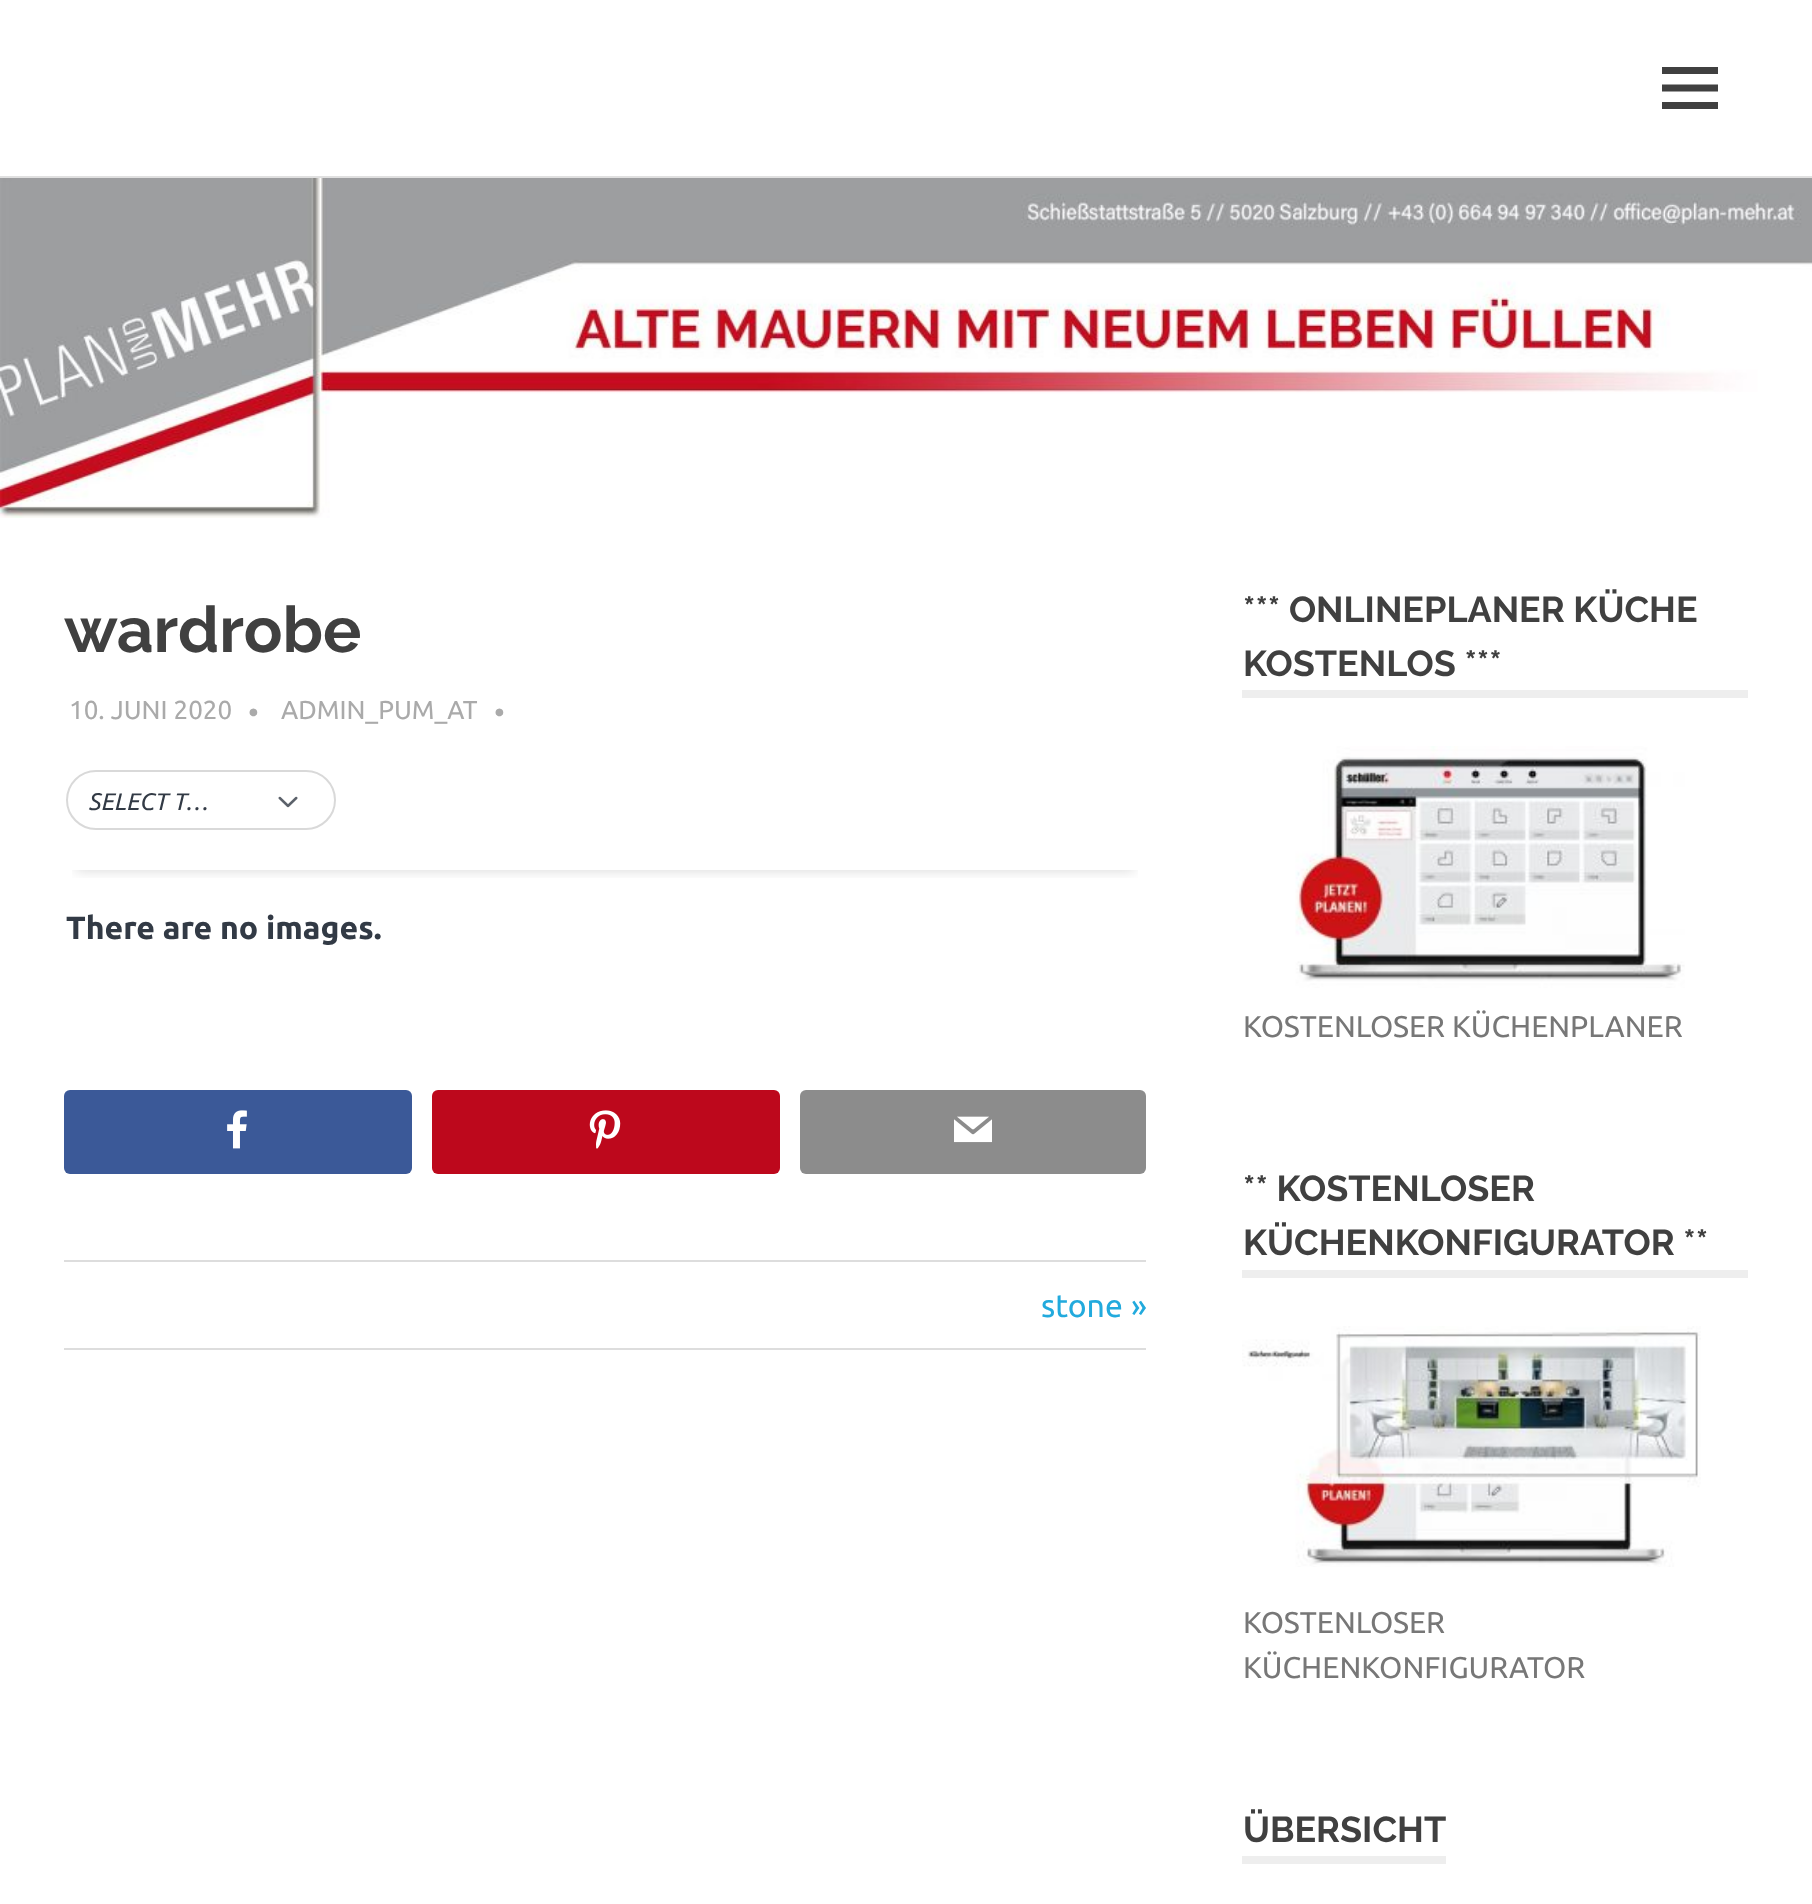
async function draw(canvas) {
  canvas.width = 1812
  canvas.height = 1904
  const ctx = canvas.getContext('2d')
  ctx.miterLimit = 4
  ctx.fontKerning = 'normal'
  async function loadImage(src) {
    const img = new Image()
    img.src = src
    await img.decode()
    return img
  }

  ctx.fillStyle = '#fff'
  ctx.fillRect(0, 0, 1812, 1904)
  ctx.fillStyle = '#e0e0e0'
  ctx.fillRect(0, 176, 1812, 2)
  ctx.drawImage(await loadImage('image0.png'), 1662, 67, 56, 42)
  ctx.drawImage(await loadImage('image1.png'), 0, 178, 1812, 340)
  ctx.font = '100 64px Raleway'
  ctx.fillStyle = '#404040'
  ctx.fillText('wardrobe', 64, 652)
  ctx.font = '26px Ubuntu'
  ctx.fillStyle = '#aaa'
  ctx.fillText('10. JUNI 2020', 69, 719)
  ctx.font = '30px Ubuntu'
  ctx.fillText('•', 248, 723)
  ctx.font = '26px Ubuntu'
  ctx.fillText('ADMIN_PUM_AT', 281, 719)
  ctx.font = '30px Ubuntu'
  ctx.fillText('•', 494, 723)
  ctx.save()
  ctx.beginPath()
  ctx.rect(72, 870, 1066, 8)
  ctx.clip()
  ctx.fillStyle = '#00000029'
  ctx.filter = 'blur(7px)'
  ctx.beginPath()
  ctx.rect(76, 790, 1058, 80)
  ctx.fill()
  ctx.filter = 'none'
  ctx.restore()
  ctx.beginPath()
  ctx.roundRect(67, 771, 268, 58, 29)
  ctx.strokeStyle = '#d9d9d9'
  ctx.lineWidth = 2
  ctx.stroke()
  ctx.font = 'italic 24px Ubuntu'
  ctx.fillStyle = '#323a45'
  ctx.fillText('SELECT T…', 88, 810)
  ctx.drawImage(await loadImage('image2.png'), 278, 796, 20, 12)
  ctx.font = 'bold 32px Ubuntu'
  ctx.fillText('There are no images.', 66, 939)
  ctx.fillStyle = '#3b5998'
  ctx.beginPath()
  ctx.roundRect(64, 1090, 348, 84, 6)
  ctx.fill()
  ctx.drawImage(await loadImage('image3.png'), 227, 1110, 20, 39)
  ctx.fillStyle = '#bd081c'
  ctx.beginPath()
  ctx.roundRect(432, 1090, 348, 84, 6)
  ctx.fill()
  ctx.drawImage(await loadImage('image4.png'), 589, 1110, 32, 39)
  ctx.fillStyle = '#8c8c8c'
  ctx.beginPath()
  ctx.roundRect(800, 1090, 346, 84, 6)
  ctx.fill()
  ctx.drawImage(await loadImage('image5.png'), 954, 1116, 38, 27)
  ctx.fillStyle = '#ddd'
  ctx.fillRect(64, 1260, 1082, 2)
  ctx.fillRect(64, 1348, 1082, 2)
  ctx.font = '32px Ubuntu'
  ctx.fillStyle = '#2ad'
  ctx.fillText('stone', 1041, 1317)
  ctx.fillText('»', 1131, 1317)
  ctx.fillStyle = '#eee'
  ctx.fillRect(1242, 690, 506, 8)
  ctx.font = '100 36px Raleway'
  ctx.fillStyle = '#404040'
  ctx.fillText('*** ONLINEPLANER KÜCHE', 1243, 622)
  ctx.fillText('KOSTENLOS ***', 1243, 676)
  ctx.drawImage(await loadImage('image6.png'), 1295, 746, 390, 242)
  ctx.font = '30px Ubuntu'
  ctx.fillStyle = '#777'
  ctx.fillText('KOSTENLOSER KÜCHENPLANER', 1243, 1037)
  ctx.fillStyle = '#eee'
  ctx.fillRect(1242, 1270, 506, 8)
  ctx.font = '100 36px Raleway'
  ctx.fillStyle = '#404040'
  ctx.fillText('** KOSTENLOSER', 1243, 1201)
  ctx.fillText('KÜCHENKONFIGURATOR **', 1243, 1255)
  ctx.drawImage(await loadImage('image7.png'), 1242, 1326, 459, 241)
  ctx.font = '30px Ubuntu'
  ctx.fillStyle = '#777'
  ctx.fillText('KOSTENLOSER', 1243, 1633)
  ctx.fillText('KÜCHENKONFIGURATOR', 1243, 1678)
  ctx.fillStyle = '#eee'
  ctx.fillRect(1242, 1856, 204, 8)
  ctx.font = '100 36px Raleway'
  ctx.fillStyle = '#404040'
  ctx.fillText('ÜBERSICHT', 1243, 1842)
}

draw(document.querySelector('canvas'))
